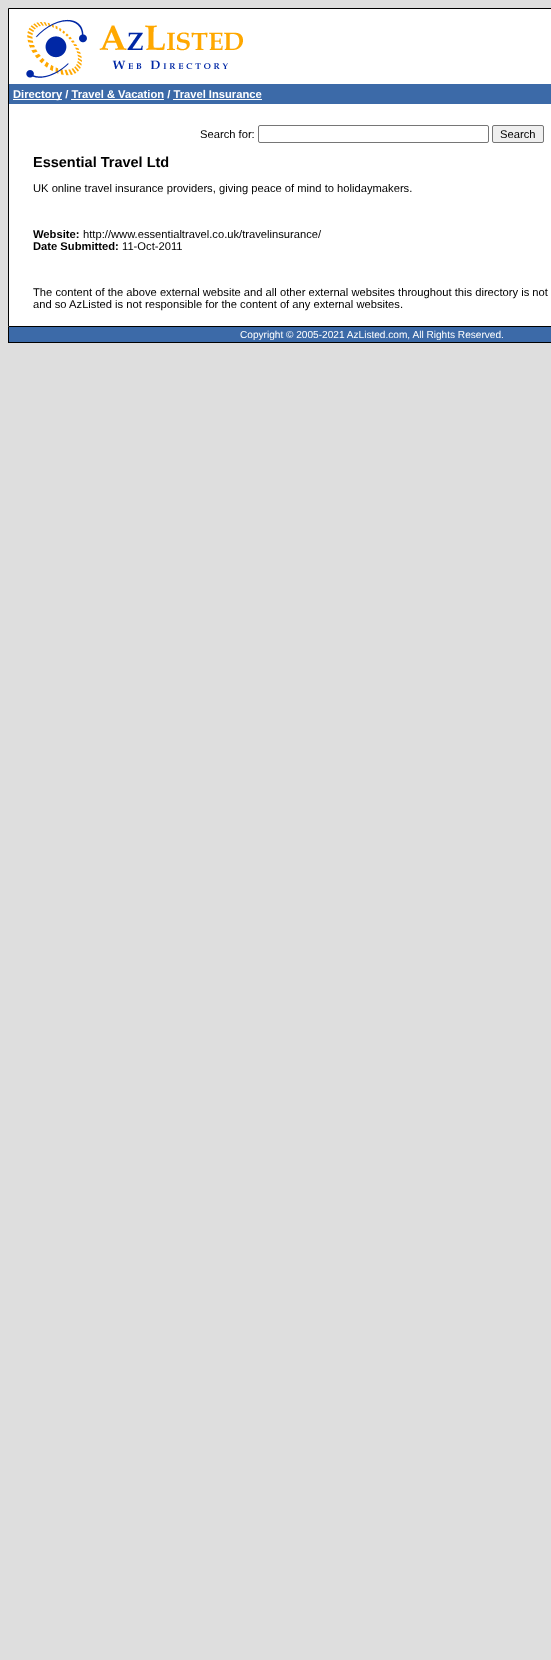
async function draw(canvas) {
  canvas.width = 551
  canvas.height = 1660
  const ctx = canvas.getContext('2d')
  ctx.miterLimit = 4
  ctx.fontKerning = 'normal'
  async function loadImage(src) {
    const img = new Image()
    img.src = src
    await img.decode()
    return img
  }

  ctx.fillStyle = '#dedede'
  ctx.fillRect(0, 0, 551, 1660)
  ctx.fillStyle = '#fff'
  ctx.beginPath()
  ctx.rect(8.5, 8.5, 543, 318)
  ctx.fill()
  ctx.strokeStyle = '#000'
  ctx.stroke()
  ctx.drawImage(await loadImage('image0.png'), 26, 19, 217, 59)
  ctx.fillStyle = '#3c6aa8'
  ctx.fillRect(9, 84, 542, 20)
  ctx.fillStyle = '#fff'
  ctx.fillRect(13, 99, 49, 1)
  ctx.font = 'bold 11.2px Liberation Sans'
  ctx.fillText('Directory / Travel & Vacation / Travel Insurance', 13, 98)
  ctx.fillRect(71, 99, 93, 1)
  ctx.fillRect(173, 99, 89, 1)
  ctx.font = '11.2px Liberation Sans'
  ctx.fillStyle = '#000'
  ctx.fillText('Search for:', 200, 138)
  ctx.beginPath()
  ctx.roundRect(258.5, 125.5, 230, 17, 1.5)
  ctx.strokeStyle = '#767676'
  ctx.stroke()
  ctx.fillStyle = '#efefef'
  ctx.beginPath()
  ctx.roundRect(492.5, 125.5, 51, 17, 1.5)
  ctx.fill()
  ctx.stroke()
  ctx.fillStyle = '#000'
  ctx.fillText('Search', 500, 138)
  ctx.font = 'bold 14.5px Liberation Sans'
  ctx.fillText('Essential Travel Ltd', 33, 167)
  ctx.font = '11.2px Liberation Sans'
  ctx.fillText('UK online travel insurance providers, giving peace of mind to holidaymakers.', 33, 192)
  ctx.font = 'bold 11.2px Liberation Sans'
  ctx.fillText('Website:', 33, 238)
  ctx.font = '11.2px Liberation Sans'
  ctx.fillText('http://www.essentialtravel.co.uk/travelinsurance/', 83, 238)
  ctx.font = 'bold 11.2px Liberation Sans'
  ctx.fillText('Date Submitted:', 33, 250)
  ctx.font = '11.2px Liberation Sans'
  ctx.fillText('11-Oct-2011', 122, 250)
  ctx.fillText('The content of the above external website and all other external websites throughout this directory is not', 33, 296)
  ctx.fillText('and so AzListed is not responsible for the content of any external websites.', 33, 308)
  ctx.fillStyle = '#3c6aa8'
  ctx.fillRect(9, 327, 542, 15)
  ctx.fillStyle = '#000'
  ctx.fillRect(8, 342, 543, 1)
  ctx.fillRect(8, 327, 1, 16)
  ctx.font = '10.1px Liberation Sans'
  ctx.fillStyle = '#fff'
  ctx.fillText('Copyright © 2005-2021 AzListed.com, All Rights Reserved.', 240, 338)
}

draw(document.querySelector('canvas'))
